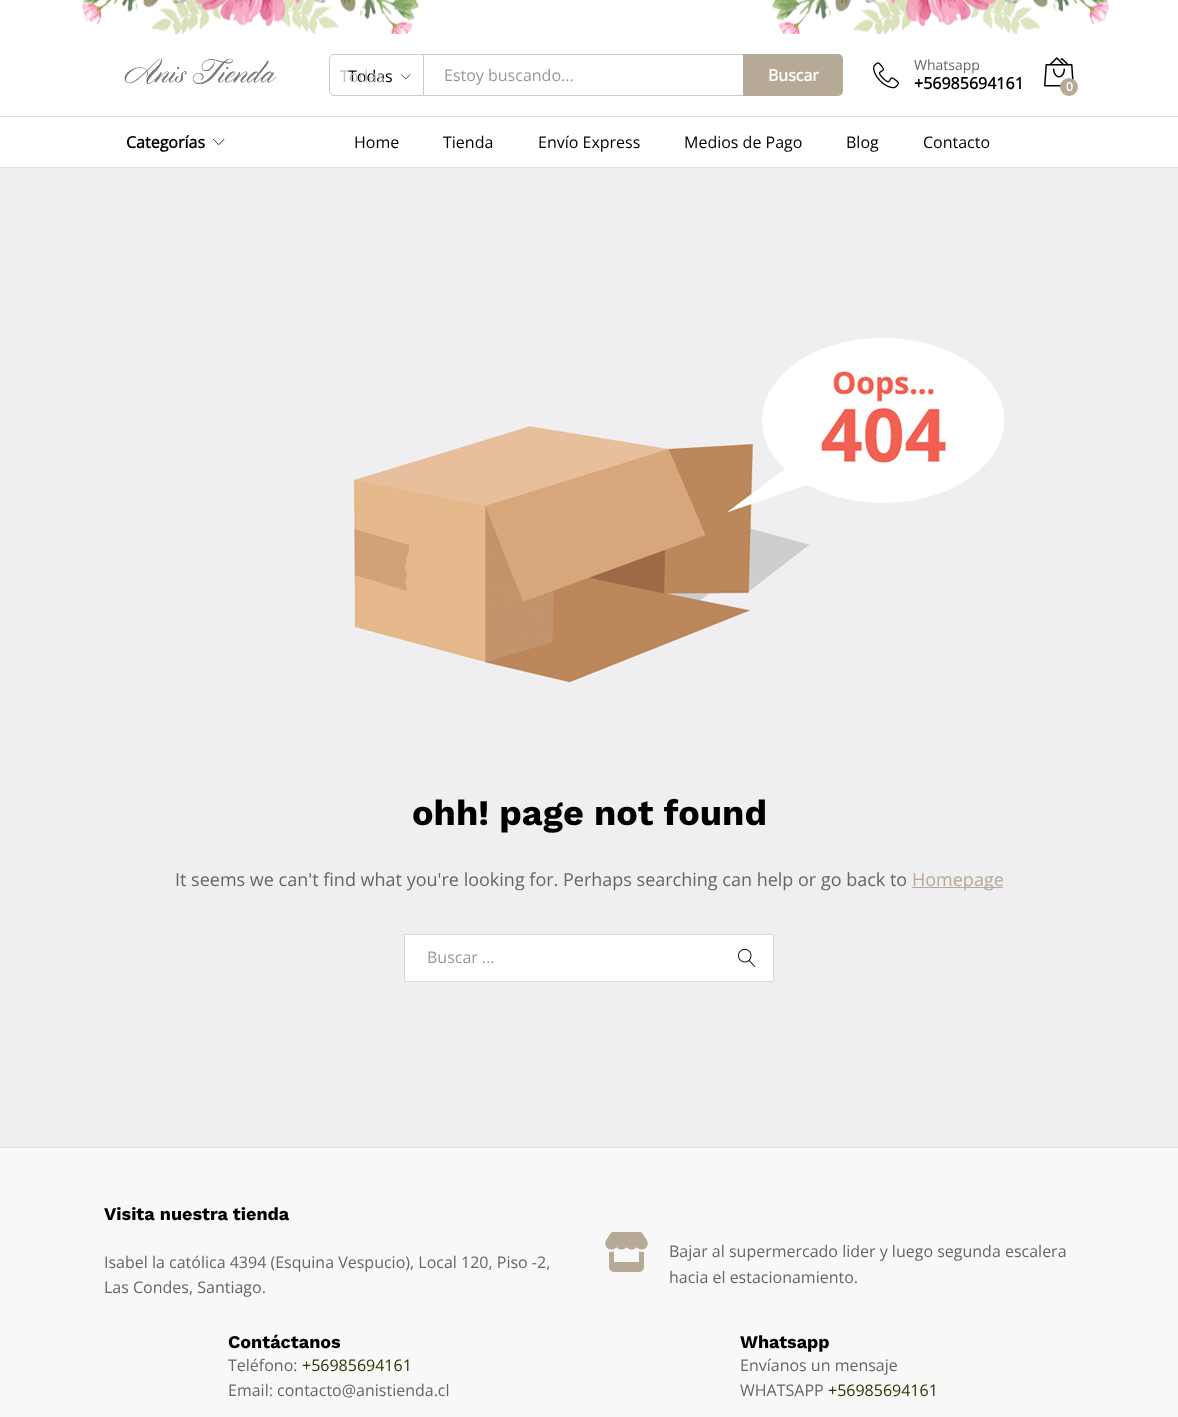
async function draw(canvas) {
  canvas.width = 1178
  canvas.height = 1417
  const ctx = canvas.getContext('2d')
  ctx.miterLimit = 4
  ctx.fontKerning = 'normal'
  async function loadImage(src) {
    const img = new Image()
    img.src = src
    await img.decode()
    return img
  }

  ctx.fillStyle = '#fff'
  ctx.fillRect(0, 0, 1178, 1417)
  ctx.drawImage(await loadImage('image0.png'), 82, 0, 1027, 34)
  ctx.drawImage(await loadImage('image1.png'), 124, 58, 153, 26)
  ctx.beginPath()
  ctx.roundRect(329.5, 54.5, 94, 41, [4.5, 0, 0, 4.5])
  ctx.strokeStyle = '#ccc'
  ctx.stroke()
  ctx.font = '16px Open Sans'
  ctx.fillStyle = '#000'
  ctx.fillText('Todas', 348, 82)
  ctx.fillStyle = '#c0c0c0'
  ctx.fillText('Todas', 340, 82)
  ctx.drawImage(await loadImage('image2.png'), 401, 74, 10, 6)
  ctx.fillStyle = '#ccc'
  ctx.fillRect(424, 54, 319, 1)
  ctx.fillRect(424, 95, 319, 1)
  ctx.fillStyle = '#999'
  ctx.fillText('Estoy buscando...', 444, 81)
  ctx.fillStyle = '#b6a996'
  ctx.beginPath()
  ctx.roundRect(743, 54, 100, 42, [0, 5, 5, 0])
  ctx.fill()
  ctx.font = 'bold 16px Open Sans'
  ctx.fillStyle = '#fff'
  ctx.fillText('Buscar', 768, 81)
  ctx.drawImage(await loadImage('image3.png'), 873, 62, 26, 27)
  ctx.font = '14px Open Sans'
  ctx.fillStyle = '#666'
  ctx.fillText('Whatsapp', 914, 70)
  ctx.font = 'bold 16px Open Sans'
  ctx.fillStyle = '#000'
  ctx.fillText('+56985694161', 914, 89)
  ctx.drawImage(await loadImage('image4.png'), 1044, 57, 30, 30)
  ctx.fillStyle = '#b6a996'
  ctx.beginPath()
  ctx.arc(1069, 87, 9, 0, 2 * Math.PI)
  ctx.fill()
  ctx.font = 'bold 12px Open Sans'
  ctx.fillStyle = '#fff'
  ctx.fillText('0', 1066, 91)
  ctx.fillStyle = '#e1e1e1'
  ctx.fillRect(0, 116, 1178, 1)
  ctx.fillRect(0, 167, 1178, 1)
  ctx.font = 'bold 16px Open Sans'
  ctx.fillStyle = '#000'
  ctx.fillText('Categorías', 126, 148)
  ctx.drawImage(await loadImage('image5.png'), 213, 139, 12, 6)
  ctx.font = '16px Open Sans'
  ctx.fillText('Home', 354, 148)
  ctx.fillText('Tienda', 443, 148)
  ctx.fillText('Envío Express', 538, 148)
  ctx.fillText('Medios de Pago', 684, 148)
  ctx.fillText('Blog', 846, 148)
  ctx.fillText('Contacto', 923, 148)
  ctx.fillStyle = '#efeef0'
  ctx.fillRect(0, 168, 1178, 979)
  ctx.drawImage(await loadImage('image6.png'), 352, 337, 652, 347)
  ctx.font = 'bold 36px Work Sans'
  ctx.fillStyle = '#000'
  ctx.fillText('ohh! page not found', 412, 825)
  ctx.font = '18px Open Sans'
  ctx.fillStyle = '#666'
  ctx.fillText('It seems we can\'t find what you\'re looking for. Perhaps searching can help or go back to', 175, 886)
  ctx.fillStyle = '#b6a996'
  ctx.fillRect(912, 887, 91, 1)
  ctx.fillText('Homepage', 912, 886)
  ctx.fillStyle = '#fff'
  ctx.beginPath()
  ctx.rect(404.5, 934.5, 369, 47)
  ctx.fill()
  ctx.strokeStyle = '#d9d9d9'
  ctx.stroke()
  ctx.font = '16px Open Sans'
  ctx.fillStyle = '#999'
  ctx.fillText('Buscar …', 427, 963)
  ctx.drawImage(await loadImage('image7.png'), 738, 948, 18, 19)
  ctx.fillStyle = '#e1e1e1'
  ctx.fillRect(0, 1147, 1178, 1)
  ctx.fillStyle = '#f8f8f8'
  ctx.fillRect(0, 1148, 1178, 269)
  ctx.font = 'bold 18px Work Sans'
  ctx.fillStyle = '#000'
  ctx.fillText('Visita nuestra tienda', 104, 1220)
  ctx.font = '16px Open Sans'
  ctx.fillStyle = '#666'
  ctx.fillText('Isabel la católica 4394 (Esquina Vespucio), Local 120, Piso -2,', 104, 1268)
  ctx.fillText('Las Condes, Santiago.', 104, 1293)
  ctx.drawImage(await loadImage('image8.png'), 605, 1232, 43, 40)
  ctx.fillText('Bajar al supermercado lider y luego segunda escalera', 669, 1257)
  ctx.fillText('hacia el estacionamiento.', 669, 1283)
  ctx.font = 'bold 18px Work Sans'
  ctx.fillStyle = '#000'
  ctx.fillText('Contáctanos', 228, 1348)
  ctx.font = '16px Open Sans'
  ctx.fillStyle = '#666'
  ctx.fillText('Teléfono:', 228, 1371)
  ctx.fillStyle = '#330'
  ctx.fillText('+56985694161', 302, 1371)
  ctx.fillStyle = '#666'
  ctx.fillText('Email: contacto@anistienda.cl', 228, 1396)
  ctx.font = 'bold 18px Work Sans'
  ctx.fillStyle = '#000'
  ctx.fillText('Whatsapp', 740, 1348)
  ctx.font = '16px Open Sans'
  ctx.fillStyle = '#666'
  ctx.fillText('Envíanos un mensaje', 740, 1371)
  ctx.fillText('WHATSAPP', 740, 1396)
  ctx.fillStyle = '#330'
  ctx.fillText('+56985694161', 828, 1396)
}

draw(document.querySelector('canvas'))
